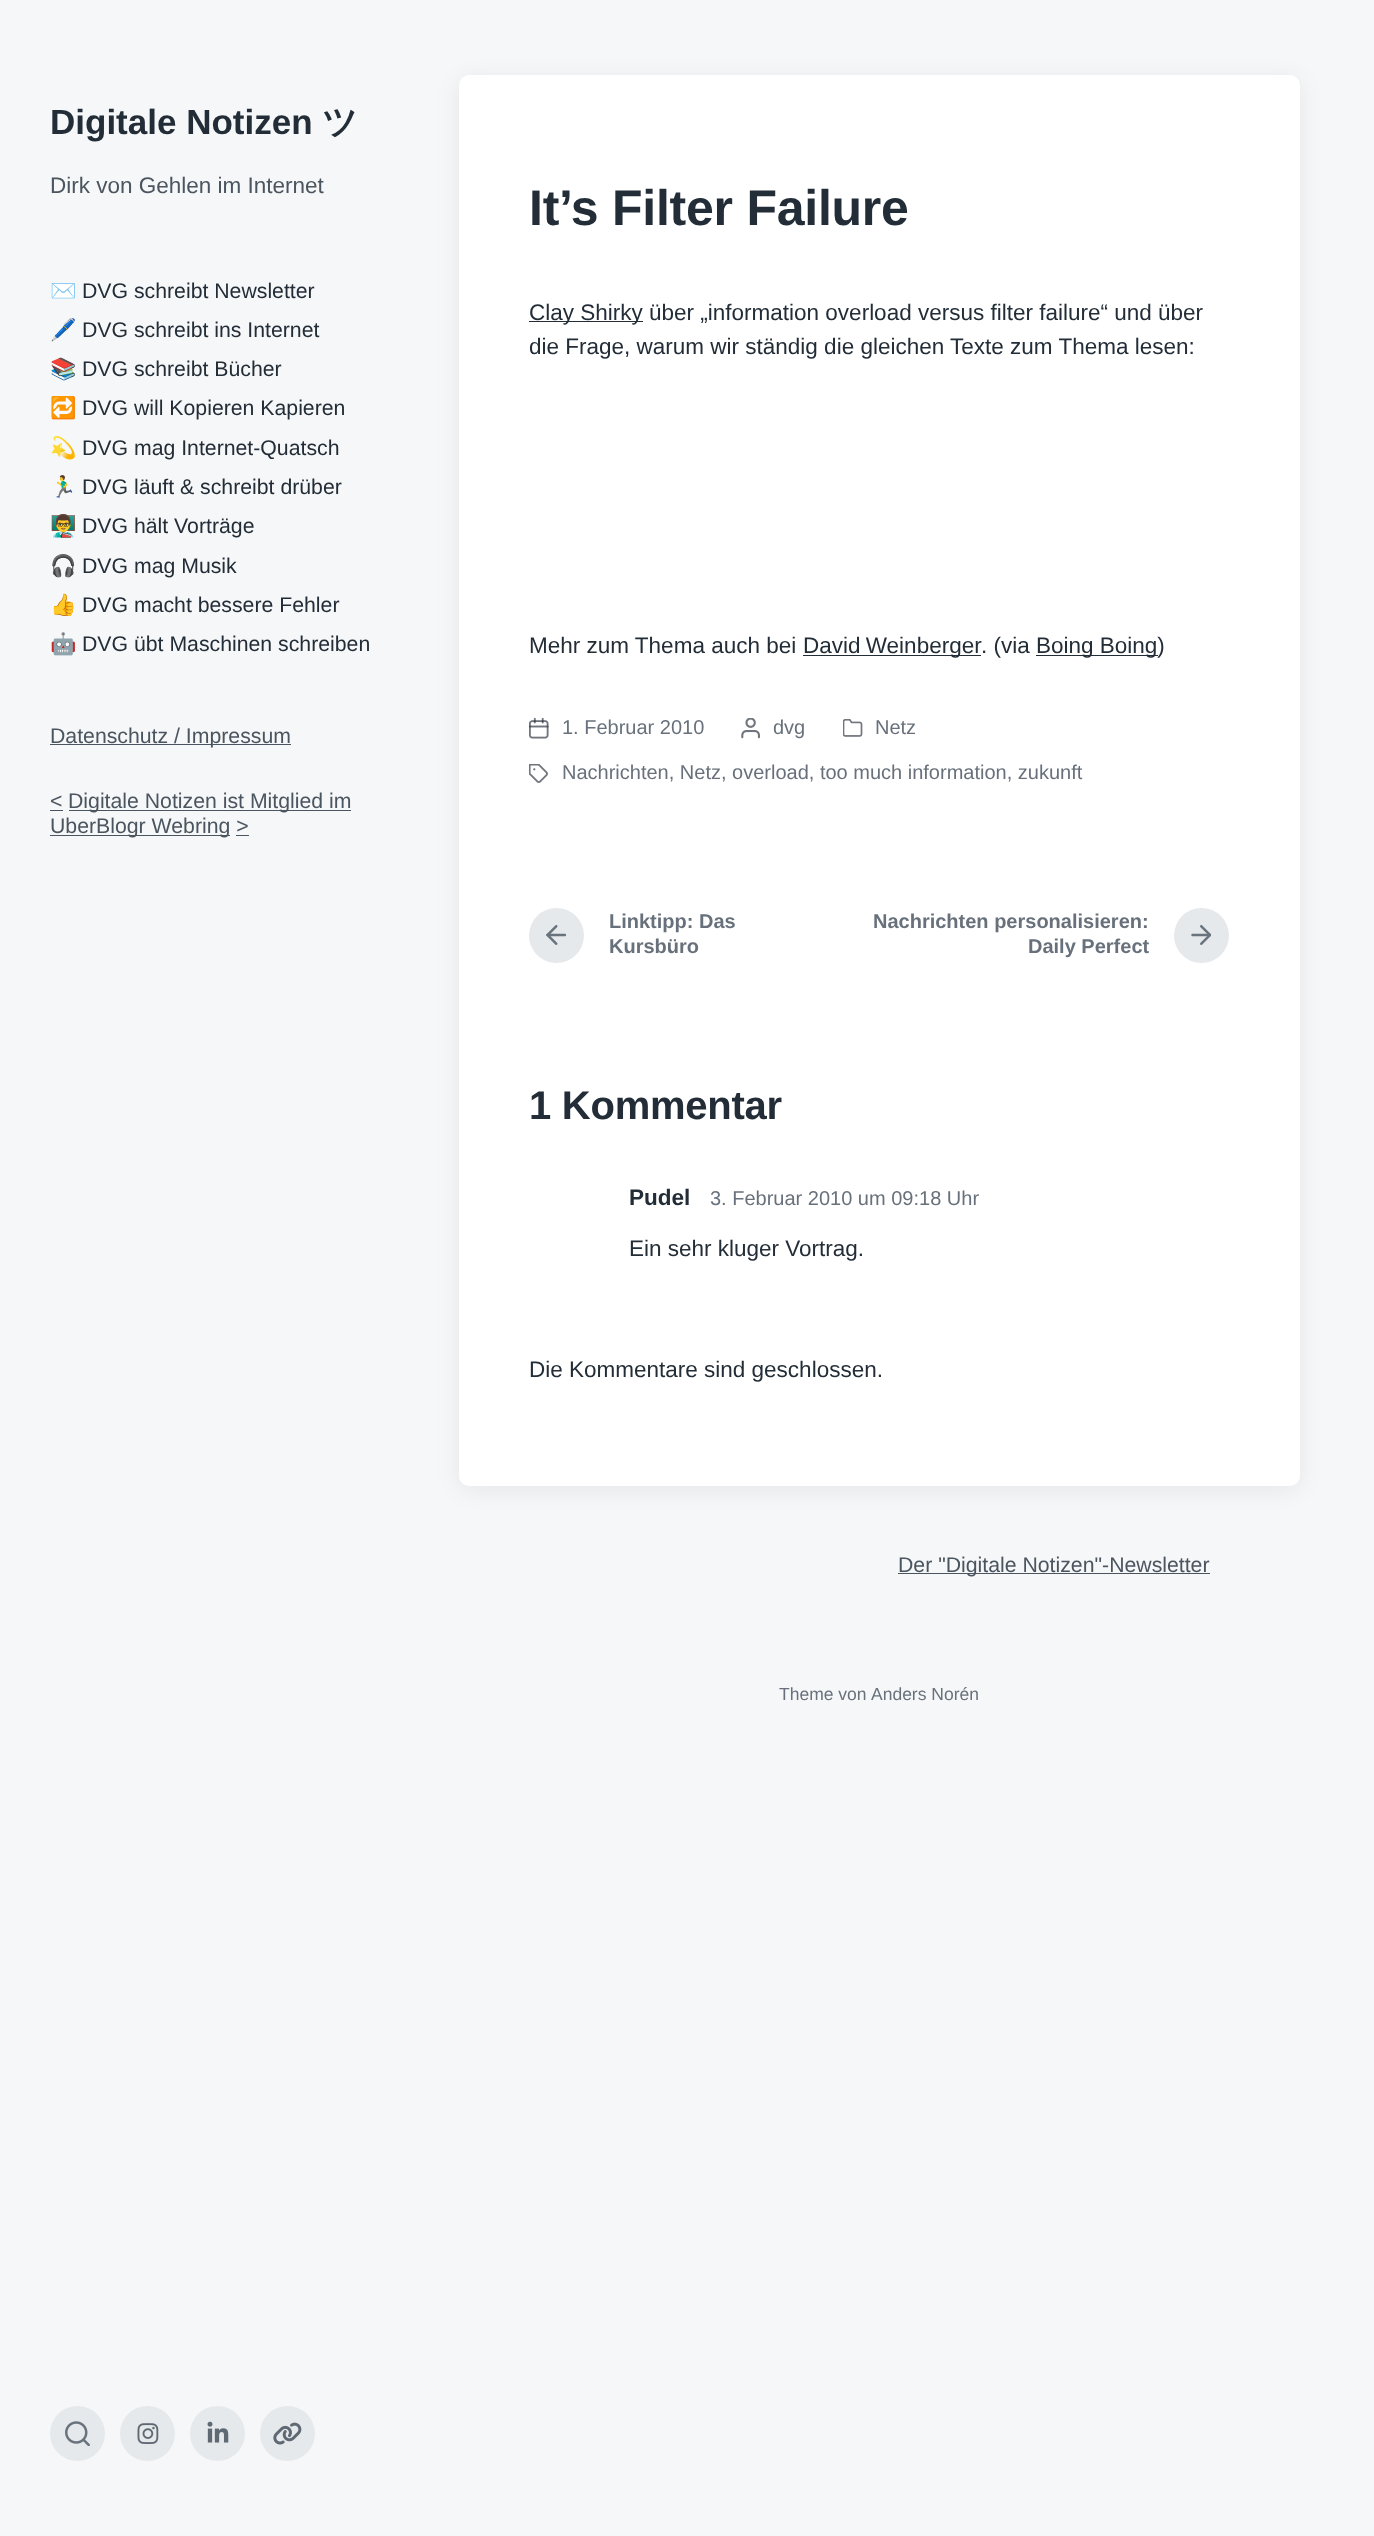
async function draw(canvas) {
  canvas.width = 1374
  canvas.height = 2536
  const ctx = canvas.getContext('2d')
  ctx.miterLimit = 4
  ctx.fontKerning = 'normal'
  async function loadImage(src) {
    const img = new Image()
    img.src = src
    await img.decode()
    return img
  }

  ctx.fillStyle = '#f6f7f8'
  ctx.fillRect(0, 0, 1374, 2536)
  ctx.font = 'bold 35px Liberation Sans'
  ctx.fillStyle = '#232d37'
  ctx.fillText('Digitale Notizen', 50, 134)
  ctx.font = 'bold 35px WenQuanYi Zen Hei'
  ctx.fillText('ツ', 322, 134)
  ctx.font = '22.5px Liberation Sans'
  ctx.fillStyle = '#4b555f'
  ctx.fillText('Dirk von Gehlen im Internet', 50, 193)
  ctx.font = '21.25px Noto Color Emoji'
  ctx.fillStyle = '#232d37'
  ctx.fillText('✉️', 50, 298)
  ctx.font = '21.25px Liberation Sans'
  ctx.fillText('DVG schreibt Newsletter', 82, 298)
  ctx.font = '21.25px Noto Color Emoji'
  ctx.fillText('🖊️', 50, 337)
  ctx.font = '21.25px Liberation Sans'
  ctx.fillText('DVG schreibt ins Internet', 82, 337)
  ctx.font = '21.25px Noto Color Emoji'
  ctx.fillText('📚', 50, 376)
  ctx.font = '21.25px Liberation Sans'
  ctx.fillText('DVG schreibt Bücher', 82, 376)
  ctx.font = '21.25px Noto Color Emoji'
  ctx.fillText('🔁', 50, 415)
  ctx.font = '21.25px Liberation Sans'
  ctx.fillText('DVG will Kopieren Kapieren', 82, 415)
  ctx.font = '21.25px Noto Color Emoji'
  ctx.fillText('💫', 50, 455)
  ctx.font = '21.25px Liberation Sans'
  ctx.fillText('DVG mag Internet-Quatsch', 82, 455)
  ctx.font = '21.25px Noto Color Emoji'
  ctx.fillText('🏃‍♂️', 50, 494)
  ctx.font = '21.25px Liberation Sans'
  ctx.fillText('DVG läuft & schreibt drüber', 82, 494)
  ctx.font = '21.25px Noto Color Emoji'
  ctx.fillText('👨‍🏫', 50, 533)
  ctx.font = '21.25px Liberation Sans'
  ctx.fillText('DVG hält Vorträge', 82, 533)
  ctx.font = '21.25px Noto Color Emoji'
  ctx.fillText('🎧', 50, 573)
  ctx.font = '21.25px Liberation Sans'
  ctx.fillText('DVG mag Musik', 82, 573)
  ctx.font = '21.25px Noto Color Emoji'
  ctx.fillText('👍', 50, 612)
  ctx.font = '21.25px Liberation Sans'
  ctx.fillText('DVG macht bessere Fehler', 82, 612)
  ctx.font = '21.25px Noto Color Emoji'
  ctx.fillText('🤖', 50, 651)
  ctx.font = '21.25px Liberation Sans'
  ctx.fillText('DVG übt Maschinen schreiben', 82, 651)
  ctx.fillStyle = '#4b555f'
  ctx.fillRect(50, 744, 241, 1)
  ctx.fillText('Datenschutz / Impressum', 50, 743)
  ctx.fillText('<', 50, 808)
  ctx.fillRect(50, 810, 13, 1)
  ctx.fillRect(69, 810, 282, 1)
  ctx.fillText('Digitale Notizen ist Mitglied im', 68, 808)
  ctx.fillRect(50, 835, 180, 1)
  ctx.fillText('UberBlogr Webring >', 50, 833)
  ctx.fillRect(236, 835, 13, 1)
  ctx.fillStyle = '#e6e9ec'
  ctx.beginPath()
  ctx.arc(77.5, 2433.5, 27.5, 0, 2 * Math.PI)
  ctx.fill()
  ctx.drawImage(await loadImage('image0.png'), 65, 2421, 25, 25)
  ctx.beginPath()
  ctx.arc(147.5, 2433.5, 27.5, 0, 2 * Math.PI)
  ctx.fill()
  ctx.drawImage(await loadImage('image1.png'), 137, 2423, 22, 21)
  ctx.beginPath()
  ctx.arc(217.5, 2433.5, 27.5, 0, 2 * Math.PI)
  ctx.fill()
  ctx.drawImage(await loadImage('image2.png'), 207, 2421, 22, 22)
  ctx.beginPath()
  ctx.arc(287.5, 2433.5, 27.5, 0, 2 * Math.PI)
  ctx.fill()
  ctx.drawImage(await loadImage('image3.png'), 273, 2422, 29, 23)
  ctx.fillStyle = '#050a0f12'
  ctx.filter = 'blur(11px)'
  ctx.beginPath()
  ctx.roundRect(459, 79, 841, 1411, 10)
  ctx.fill()
  ctx.filter = 'none'
  ctx.fillStyle = '#fff'
  ctx.beginPath()
  ctx.roundRect(459, 75, 841, 1411, 10)
  ctx.fill()
  ctx.letterSpacing = '-0.25px'
  ctx.font = 'bold 50px Liberation Sans'
  ctx.fillStyle = '#232d37'
  ctx.fillText('It’s Filter Failure', 529, 225)
  ctx.fillRect(529, 321, 114, 1)
  ctx.letterSpacing = '0px'
  ctx.font = '22.5px Liberation Sans'
  ctx.fillText('Clay Shirky über „information overload versus filter failure“ und über', 529, 320)
  ctx.fillText('die Frage, warum wir ständig die gleichen Texte zum Thema lesen:', 529, 354)
  ctx.fillText('Mehr zum Thema auch bei', 529, 653)
  ctx.fillRect(803, 655, 178, 1)
  ctx.wordSpacing = '-1px'
  ctx.fillText('David Weinberger', 803, 653)
  ctx.wordSpacing = '0px'
  ctx.fillText('. (via', 981, 653)
  ctx.fillRect(1036, 655, 122, 1)
  ctx.fillText('Boing Boing)', 1036, 653)
  ctx.drawImage(await loadImage('image4.png'), 529, 718, 20, 21)
  ctx.font = '20px Liberation Sans'
  ctx.fillStyle = '#68717b'
  ctx.fillText('1. Februar 2010', 562, 734)
  ctx.drawImage(await loadImage('image5.png'), 741, 718, 19, 21)
  ctx.fillText('dvg', 773, 734)
  ctx.drawImage(await loadImage('image6.png'), 843, 719, 20, 18)
  ctx.fillText('Netz', 875, 734)
  ctx.drawImage(await loadImage('image7.png'), 529, 764, 19, 19)
  ctx.fillText('Nachrichten, Netz, overload, too much information, zukunft', 562, 779)
  ctx.fillStyle = '#e6e9ec'
  ctx.beginPath()
  ctx.arc(556.5, 935.5, 27.5, 0, 2 * Math.PI)
  ctx.fill()
  ctx.drawImage(await loadImage('image8.png'), 546, 925, 20, 20)
  ctx.font = 'bold 20px Liberation Sans'
  ctx.fillStyle = '#68717b'
  ctx.fillText('Linktipp: Das', 609, 928)
  ctx.fillText('Kursbüro', 609, 953)
  ctx.fillText('Nachrichten personalisieren:', 873, 928)
  ctx.fillText('Daily Perfect', 1028, 953)
  ctx.fillStyle = '#e6e9ec'
  ctx.beginPath()
  ctx.arc(1201.5, 935.5, 27.5, 0, 2 * Math.PI)
  ctx.fill()
  ctx.drawImage(await loadImage('image9.png'), 1191, 925, 20, 20)
  ctx.letterSpacing = '-0.25px'
  ctx.font = 'bold 40px Liberation Sans'
  ctx.fillStyle = '#232d37'
  ctx.fillText('1 Kommentar', 529, 1119)
  ctx.letterSpacing = '0px'
  ctx.font = 'bold 22.5px Liberation Sans'
  ctx.fillText('Pudel', 629, 1205)
  ctx.font = '20px Liberation Sans'
  ctx.fillStyle = '#68717b'
  ctx.fillText('3. Februar 2010 um 09:18 Uhr', 710, 1205)
  ctx.font = '22.5px Liberation Sans'
  ctx.fillStyle = '#232d37'
  ctx.fillText('Ein sehr kluger Vortrag.', 629, 1256)
  ctx.fillText('Die Kommentare sind geschlossen.', 529, 1377)
  ctx.fillStyle = '#4b555f'
  ctx.fillRect(898, 1573, 312, 1)
  ctx.font = '21.25px Liberation Sans'
  ctx.fillText('Der "Digitale Notizen"-Newsletter', 898, 1572)
  ctx.font = '17.5px Liberation Sans'
  ctx.fillStyle = '#68717b'
  ctx.fillText('Theme von', 779, 1700)
  ctx.fillText('Anders Norén', 871, 1700)
}

draw(document.querySelector('canvas'))
